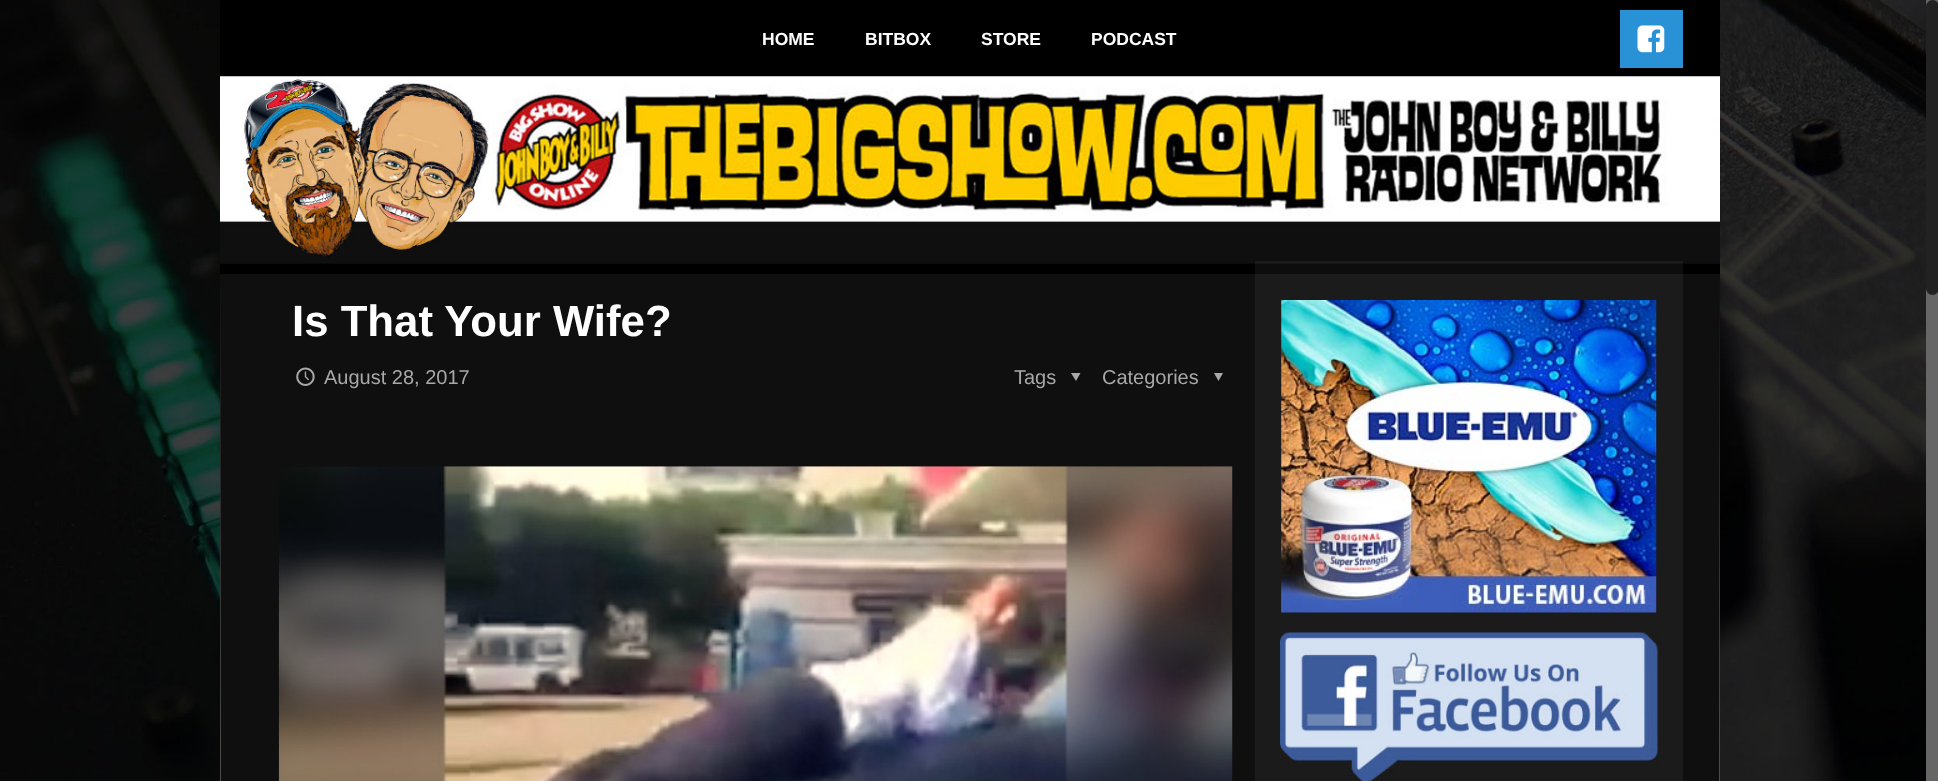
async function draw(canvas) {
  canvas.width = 1938
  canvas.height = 781
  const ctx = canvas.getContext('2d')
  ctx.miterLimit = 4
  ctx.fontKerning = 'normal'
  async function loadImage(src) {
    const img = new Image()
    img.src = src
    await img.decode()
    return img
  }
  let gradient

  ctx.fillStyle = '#fff'
  ctx.fillRect(0, 0, 1938, 781)
  ctx.drawImage(await loadImage('image0.png'), 0, 0, 1926, 781)
  ctx.fillStyle = '#000'
  ctx.fillRect(220, 0, 1500, 274)
  ctx.font = 'bold 17.5px Liberation Sans'
  ctx.fillStyle = '#fff'
  ctx.fillText('HOME', 762, 45)
  ctx.fillText('BITBOX', 865, 45)
  ctx.fillText('STORE', 981, 45)
  ctx.fillText('PODCAST', 1091, 45)
  ctx.fillStyle = '#2991d6'
  ctx.fillRect(1620, 10, 63, 58)
  ctx.drawImage(await loadImage('image1.png'), 1637, 25, 28, 28)
  ctx.drawImage(await loadImage('image2.png'), 220, 76, 1500, 188)
  ctx.fillStyle = '#0f0f0f'
  ctx.fillRect(221, 274, 1498, 507)
  gradient = ctx.createLinearGradient(221, 274, 221, 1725)
  gradient.addColorStop(0, '#0f0f0f')
  gradient.addColorStop(0.5, '#676767')
  gradient.addColorStop(1, '#0f0f0f')
  ctx.fillStyle = gradient
  ctx.fillRect(220, 274, 1, 507)
  ctx.font = 'bold 43.75px Liberation Sans'
  ctx.fillStyle = '#fff'
  ctx.fillText('Is That Your Wife?', 292, 336)
  ctx.drawImage(await loadImage('image3.png'), 296, 367, 19, 19)
  ctx.font = '20px Liberation Sans'
  ctx.fillStyle = '#a8a8a8'
  ctx.fillText('August 28, 2017', 324, 384)
  ctx.fillText('Tags', 1014, 384)
  ctx.beginPath()
  ctx.moveTo(1080.5, 373)
  ctx.lineTo(1076, 381)
  ctx.lineTo(1071, 373)
  ctx.closePath()
  ctx.fill()
  ctx.fillText('Categories', 1102, 384)
  ctx.beginPath()
  ctx.moveTo(1223, 373)
  ctx.lineTo(1218.5, 381)
  ctx.lineTo(1214, 373)
  ctx.closePath()
  ctx.fill()
  ctx.drawImage(await loadImage('image4.png'), 278, 466, 955, 315)
  ctx.fillStyle = '#ffffff0d'
  ctx.fillRect(1255, 261, 428, 520)
  ctx.drawImage(await loadImage('image5.png'), 1281, 300, 376, 313)
  ctx.drawImage(await loadImage('image6.png'), 1280, 632, 378, 149)
  gradient = ctx.createLinearGradient(1719, 274, 1719, 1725)
  gradient.addColorStop(0, '#0f0f0f')
  gradient.addColorStop(0.5, '#676767')
  gradient.addColorStop(1, '#0f0f0f')
  ctx.fillStyle = gradient
  ctx.fillRect(1719, 274, 1, 507)
  ctx.fillStyle = '#666'
  ctx.fillRect(1926, 0, 12, 781)
  ctx.fillStyle = '#222'
  ctx.beginPath()
  ctx.roundRect(1926, 0, 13, 295, 6.5)
  ctx.fill()
}

draw(document.querySelector('canvas'))
